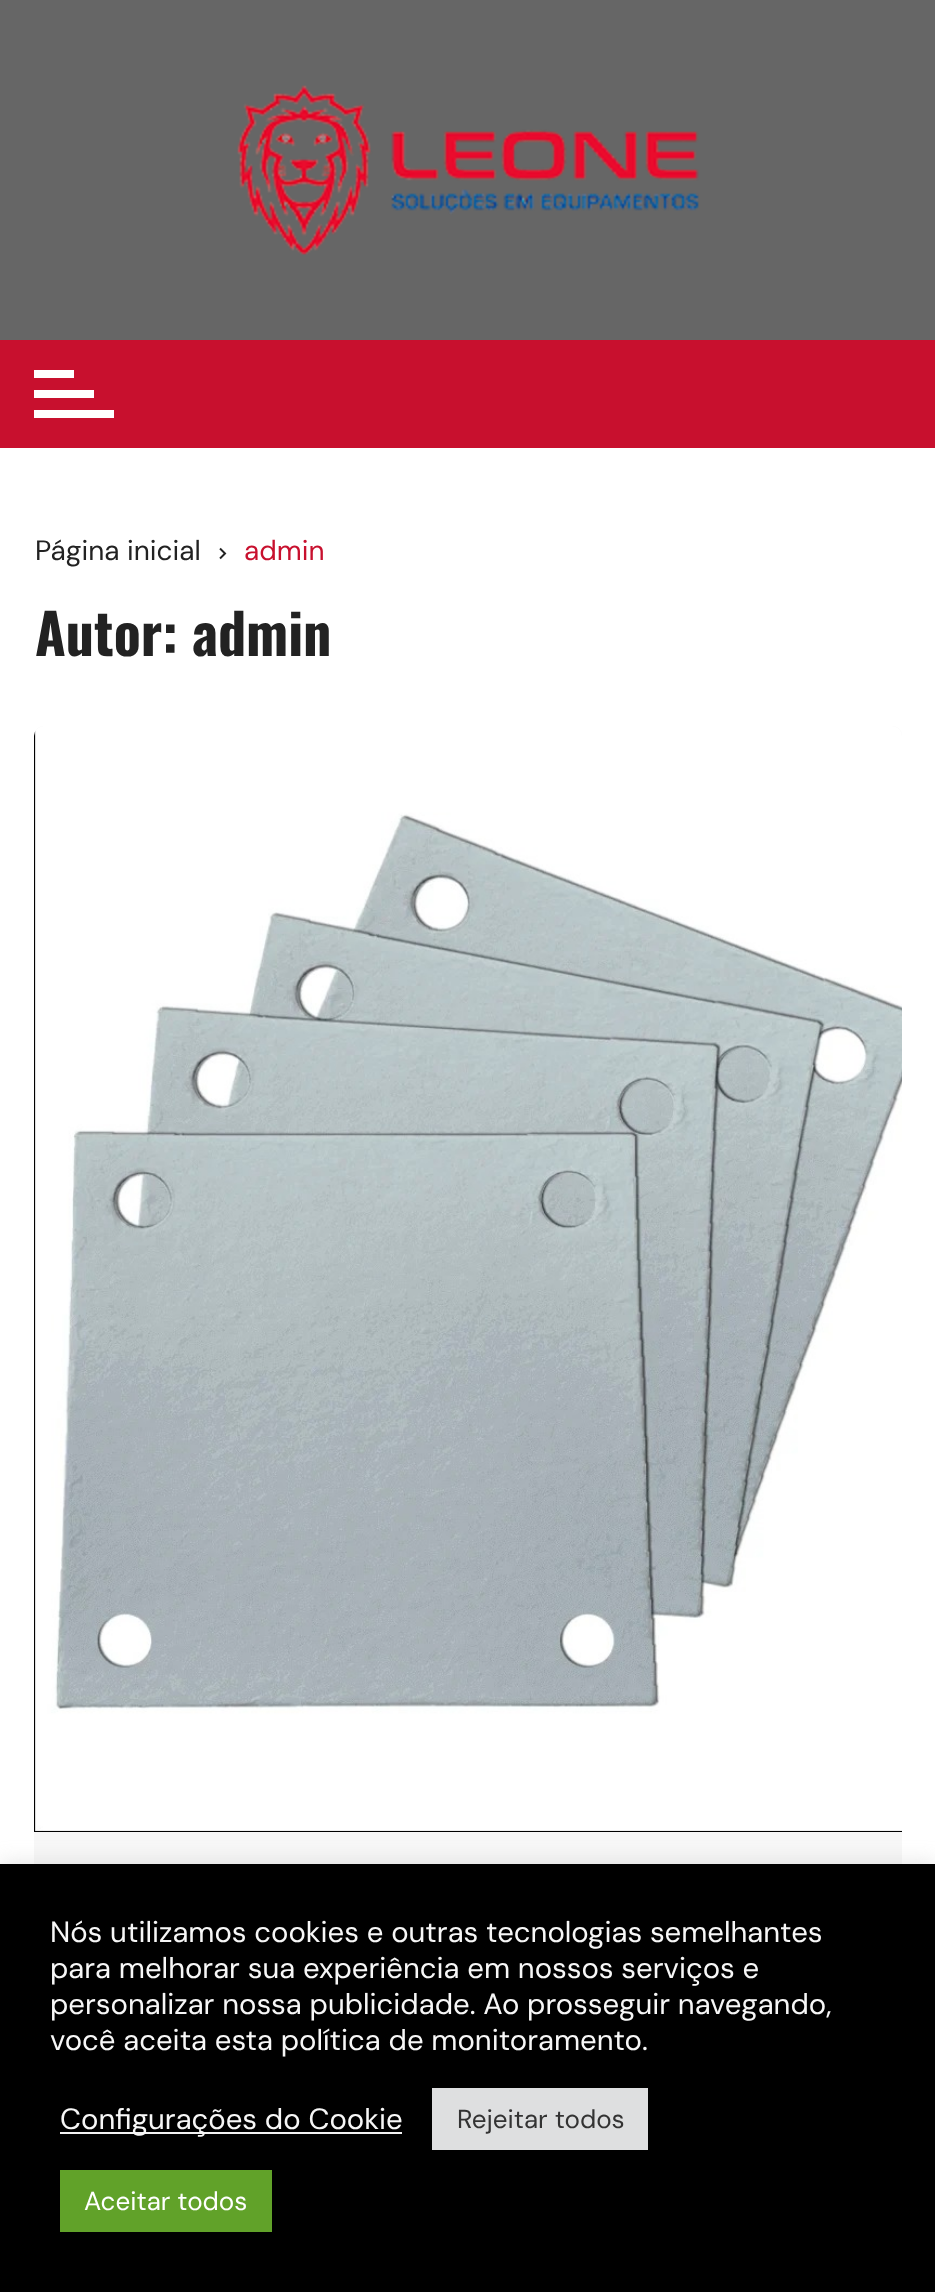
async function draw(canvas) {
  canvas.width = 935
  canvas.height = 2292
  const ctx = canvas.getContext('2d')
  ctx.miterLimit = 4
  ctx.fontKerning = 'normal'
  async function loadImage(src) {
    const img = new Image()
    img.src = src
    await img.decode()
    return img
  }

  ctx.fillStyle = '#fff'
  ctx.fillRect(0, 0, 935, 2292)
  ctx.fillStyle = '#666'
  ctx.fillRect(0, 0, 935, 340)
  ctx.drawImage(await loadImage('image0.png'), 237, 85, 462, 170)
  ctx.fillStyle = '#c8102e'
  ctx.fillRect(0, 340, 935, 108)
  ctx.fillStyle = '#fff'
  ctx.fillRect(34, 370, 40, 8)
  ctx.fillRect(34, 390, 60, 8)
  ctx.fillRect(34, 410, 80, 8)
  ctx.font = '28px DM Sans'
  ctx.fillStyle = '#222'
  ctx.fillText('Página inicial', 35, 560)
  ctx.drawImage(await loadImage('image1.png'), 219, 547, 8, 13)
  ctx.fillStyle = '#c8102e'
  ctx.fillText('admin', 244, 560)
  ctx.font = 'bold 56px Oswald'
  ctx.fillStyle = '#222'
  ctx.fillText('Autor: admin', 35, 656)
  ctx.fillStyle = '#f5f5f5'
  ctx.beginPath()
  ctx.roundRect(34, 726, 868, 1106, [10, 10, 0, 0])
  ctx.fill()
  ctx.drawImage(await loadImage('image2.png'), 34, 726, 868, 1106)
  ctx.fillStyle = '#f7f7f7'
  ctx.fillRect(34, 1832, 868, 32)
  ctx.fillStyle = '#acabab4d'
  ctx.filter = 'blur(10px)'
  ctx.beginPath()
  ctx.rect(0, 1862, 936, 428)
  ctx.fill()
  ctx.filter = 'none'
  ctx.fillStyle = '#000'
  ctx.fillRect(0, 1864, 935, 428)
  ctx.font = '29.3px DM Sans'
  ctx.fillStyle = '#f7f7f7'
  ctx.fillText('Nós utilizamos cookies e outras tecnologias semelhantes', 50, 1942)
  ctx.fillText('para melhorar sua experiência em nossos serviços e', 50, 1978)
  ctx.fillText('personalizar nossa publicidade. Ao prosseguir navegando,', 50, 2014)
  ctx.fillText('você aceita esta política de monitoramento.', 50, 2050)
  ctx.fillStyle = '#f2f2f2'
  ctx.fillRect(60, 2132, 342, 2)
  ctx.fillStyle = '#f7f7f7'
  ctx.fillText('Configurações do Cookie', 60, 2129)
  ctx.fillStyle = '#dedfe0'
  ctx.fillRect(432, 2088, 216, 62)
  ctx.font = '26px DM Sans'
  ctx.fillStyle = '#333'
  ctx.fillText('Rejeitar todos', 457, 2128)
  ctx.fillStyle = '#61a229'
  ctx.fillRect(60, 2170, 212, 62)
  ctx.fillStyle = '#fff'
  ctx.fillText('Aceitar todos', 84, 2210)
}

draw(document.querySelector('canvas'))
